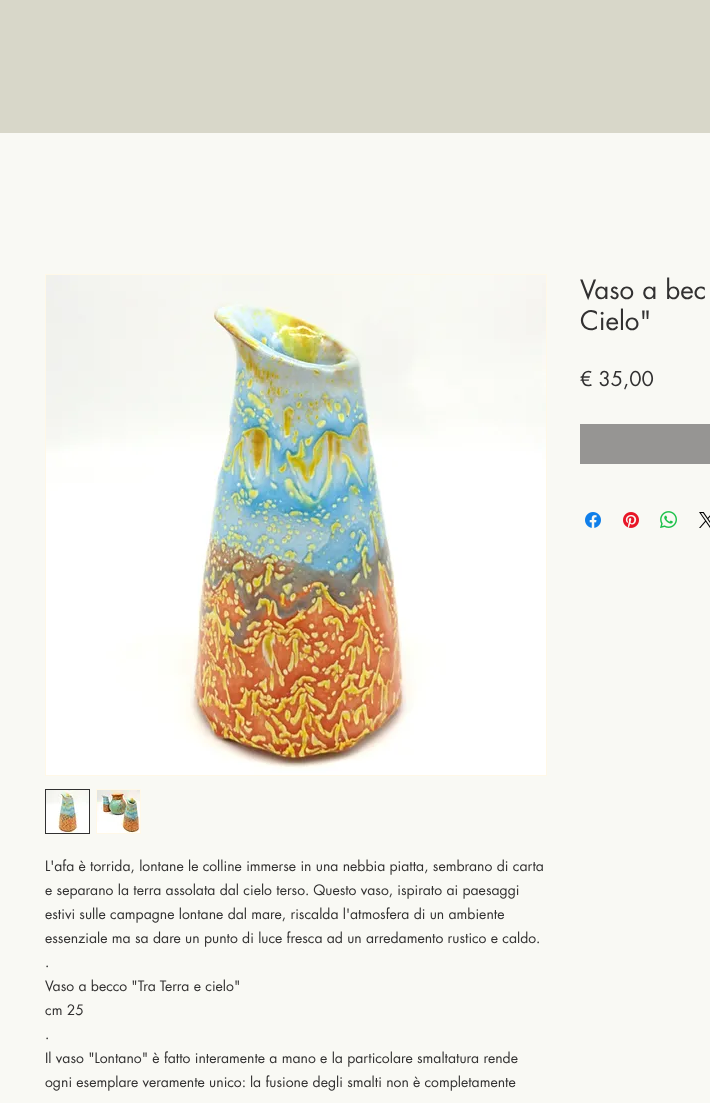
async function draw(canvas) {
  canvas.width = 710
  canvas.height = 1103
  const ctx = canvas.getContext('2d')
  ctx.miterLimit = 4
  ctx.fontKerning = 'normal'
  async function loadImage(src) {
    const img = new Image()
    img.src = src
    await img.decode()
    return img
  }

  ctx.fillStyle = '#f9f9f4'
  ctx.fillRect(0, 0, 710, 1103)
  ctx.fillStyle = '#d8d7c9'
  ctx.fillRect(0, 0, 710, 133)
  ctx.font = '26px futura'
  ctx.fillStyle = '#323131'
  ctx.fillText('Vaso a bec', 580, 299)
  ctx.fillText('Cielo"', 580, 330)
  ctx.font = '20px futura'
  ctx.fillText('€ 35,00', 580, 386)
  ctx.fillStyle = '#969593'
  ctx.fillRect(580, 424, 130, 40)
  ctx.drawImage(await loadImage('image0.png'), 585, 512, 16, 16)
  ctx.drawImage(await loadImage('image1.png'), 623, 512, 16, 16)
  ctx.drawImage(await loadImage('image2.png'), 660, 511, 17, 17)
  ctx.drawImage(await loadImage('image3.png'), 699, 512, 11, 16)
  ctx.strokeStyle = '#fff8e7'
  ctx.strokeRect(45.5, 274.5, 501, 501)
  ctx.drawImage(await loadImage('image4.png'), 46, 275, 500, 500)
  ctx.strokeStyle = '#323131'
  ctx.strokeRect(45.5, 789.5, 44, 44)
  ctx.drawImage(await loadImage('image5.png'), 46, 790, 43, 43)
  ctx.fillStyle = '#fff8e7'
  ctx.fillRect(96, 789, 45, 45)
  ctx.drawImage(await loadImage('image6.png'), 97, 790, 43, 43)
  ctx.font = '14px futura'
  ctx.fillStyle = '#323131'
  ctx.fillText('L\'afa è torrida, lontane le colline immerse in una nebbia piatta, sembrano di carta', 45, 871)
  ctx.fillText('e separano la terra assolata dal cielo terso. Questo vaso, ispirato ai paesaggi', 45, 895)
  ctx.fillText('estivi sulle campagne lontane dal mare, riscalda l\'atmosfera di un ambiente', 45, 919)
  ctx.fillText('essenziale ma sa dare un punto di luce fresca ad un arredamento rustico e caldo.', 45, 943)
  ctx.fillText('.', 45, 967)
  ctx.fillText('Vaso a becco "Tra Terra e cielo"', 45, 991)
  ctx.fillText('cm 25', 45, 1015)
  ctx.fillText('.', 45, 1039)
  ctx.fillText('Il vaso "Lontano" è fatto interamente a mano e la particolare smaltatura rende', 45, 1063)
  ctx.fillText('ogni esemplare veramente unico: la fusione degli smalti non è completamente', 45, 1087)
}

draw(document.querySelector('canvas'))
